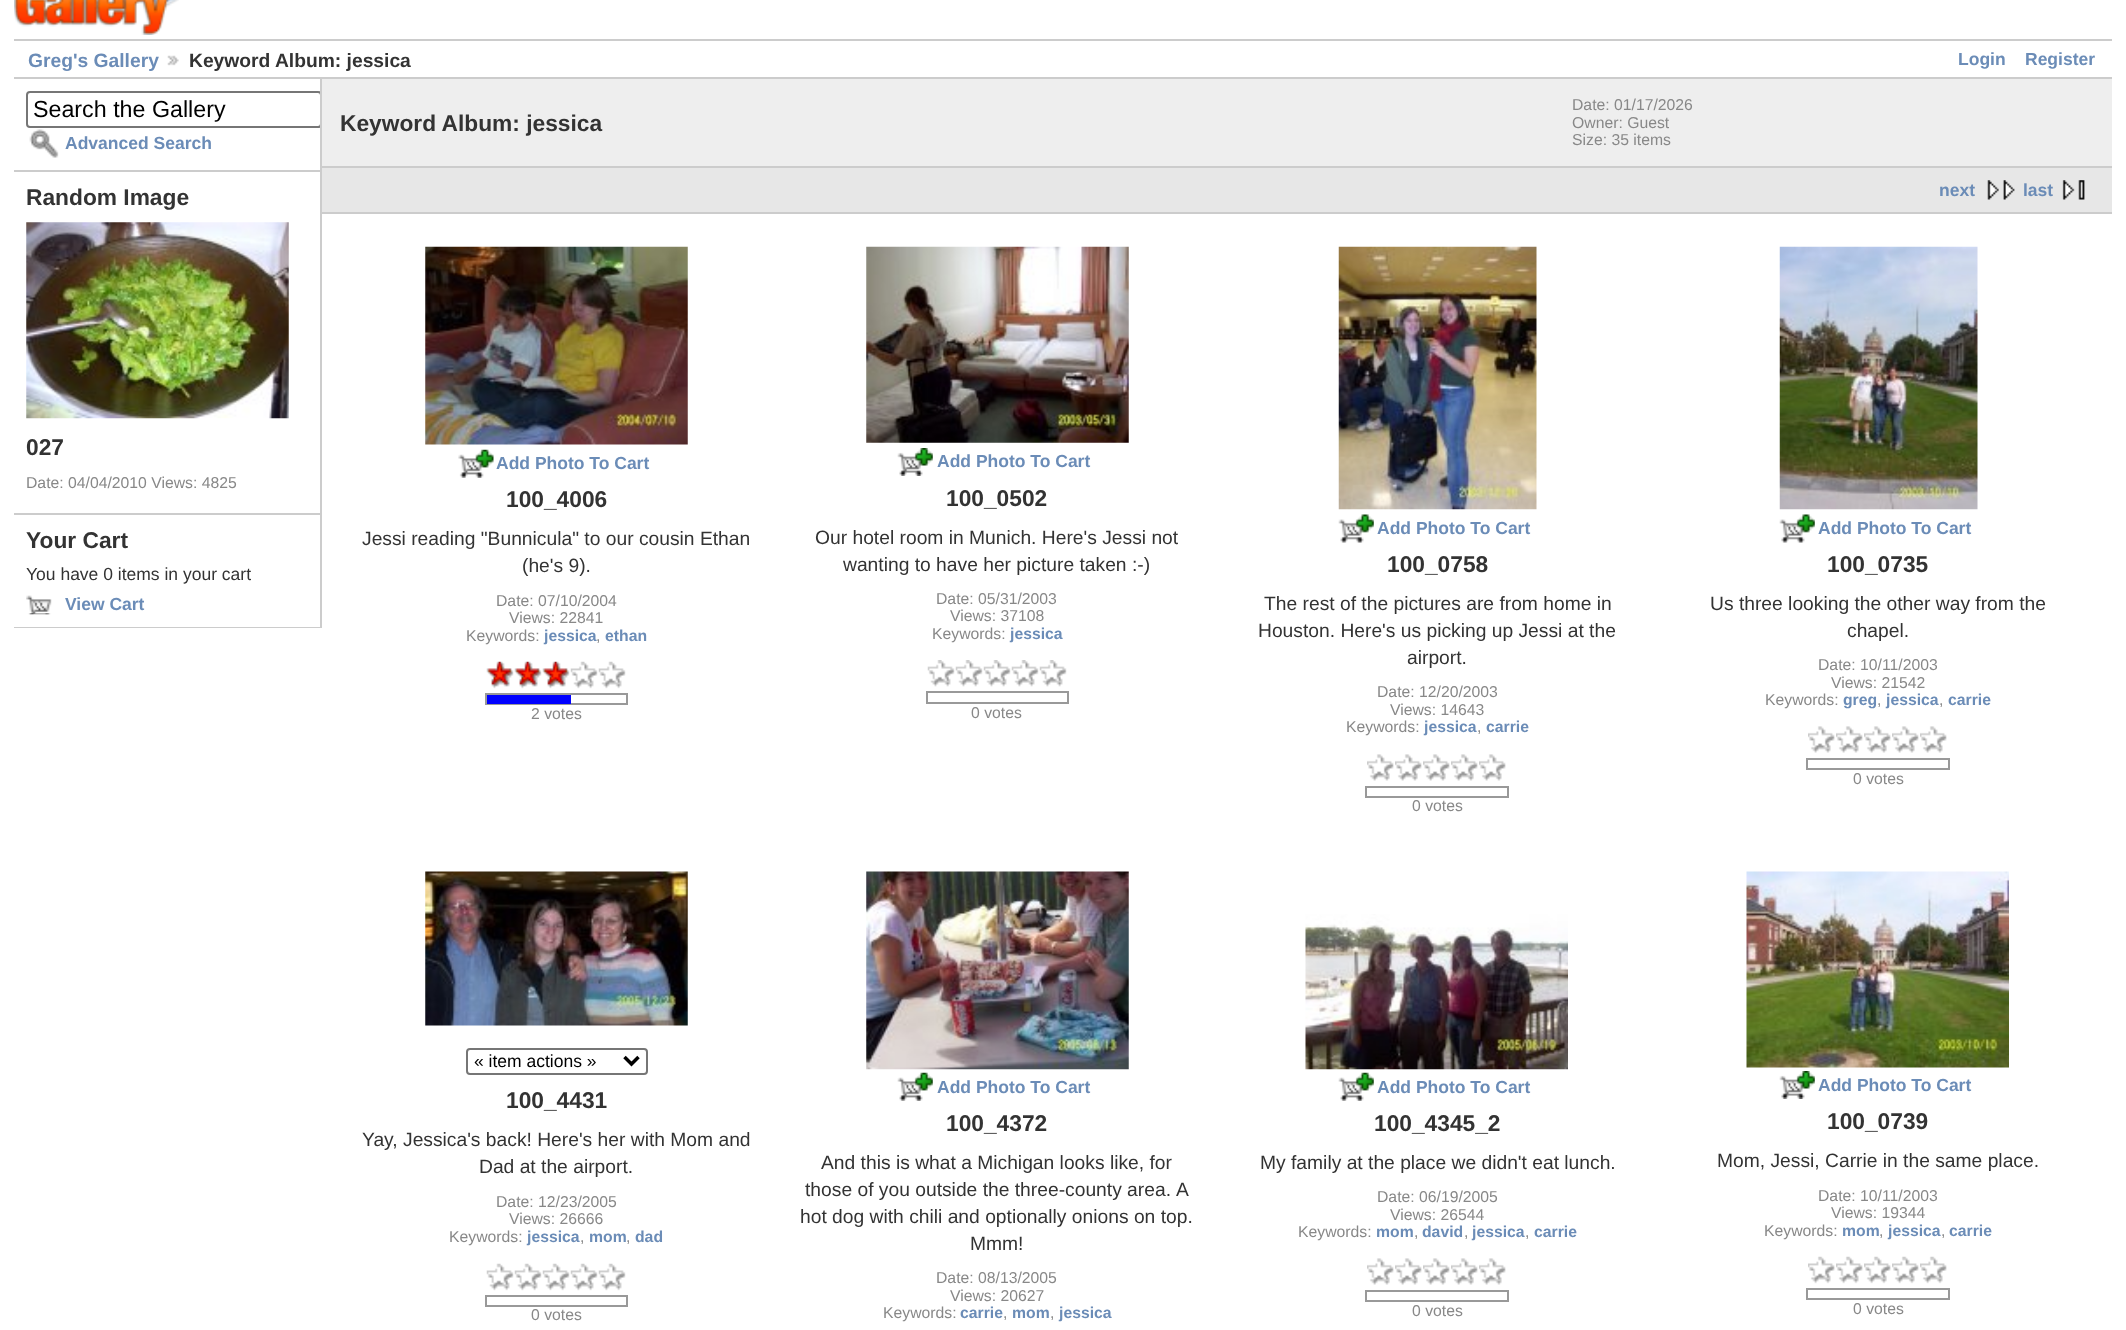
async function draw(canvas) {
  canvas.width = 2126
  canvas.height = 1330
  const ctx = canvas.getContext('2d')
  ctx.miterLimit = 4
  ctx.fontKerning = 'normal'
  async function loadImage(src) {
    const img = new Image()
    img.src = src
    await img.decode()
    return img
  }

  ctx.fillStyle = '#fff'
  ctx.fillRect(0, 0, 2126, 1330)
  ctx.drawImage(await loadImage('image0.png'), 14, 0, 165, 35)
  ctx.fillStyle = '#ccc'
  ctx.fillRect(14, 39, 2098, 2)
  ctx.fillRect(14, 77, 2098, 2)
  ctx.font = 'bold 19.25px Liberation Sans'
  ctx.fillStyle = '#6b8cb7'
  ctx.fillText('Greg\'s Gallery', 28, 67)
  ctx.drawImage(await loadImage('image1.png'), 167, 55, 12, 11)
  ctx.fillStyle = '#333'
  ctx.fillText('Keyword Album: jessica', 189, 67)
  ctx.font = 'bold 17.5px Liberation Sans'
  ctx.fillStyle = '#6b8cb7'
  ctx.fillText('Login', 1958, 65)
  ctx.fillText('Register', 2025, 65)
  ctx.fillStyle = '#ccc'
  ctx.fillRect(320, 79, 2, 549)
  ctx.fillRect(14, 170, 306, 2)
  ctx.save()
  ctx.beginPath()
  ctx.rect(14, 79, 306, 549)
  ctx.clip()
  ctx.beginPath()
  ctx.roundRect(27, 92, 294, 35, 3)
  ctx.strokeStyle = '#767676'
  ctx.lineWidth = 2
  ctx.stroke()
  ctx.restore()
  ctx.font = '23.25px Liberation Sans'
  ctx.fillStyle = '#000'
  ctx.fillText('Search the Gallery', 33, 117)
  ctx.drawImage(await loadImage('image2.png'), 29, 129, 30, 29)
  ctx.font = 'bold 17.5px Liberation Sans'
  ctx.fillStyle = '#6b8cb7'
  ctx.fillText('Advanced Search', 65, 149)
  ctx.fillStyle = '#ccc'
  ctx.fillRect(14, 513, 306, 2)
  ctx.font = 'bold 22.75px Liberation Sans'
  ctx.fillStyle = '#333'
  ctx.fillText('Random Image', 26, 205)
  ctx.drawImage(await loadImage('image3.png'), 26, 222, 263, 197)
  ctx.fillText('027', 26, 455)
  ctx.font = '15.75px Liberation Sans'
  ctx.fillStyle = '#888'
  ctx.fillText('Date: 04/04/2010 Views: 4825', 26, 488)
  ctx.fillStyle = '#ccc'
  ctx.fillRect(14, 627, 306, 1)
  ctx.font = 'bold 22.75px Liberation Sans'
  ctx.fillStyle = '#333'
  ctx.fillText('Your Cart', 26, 548)
  ctx.font = '17.5px Liberation Sans'
  ctx.fillText('You have 0 items in your cart', 26, 580)
  ctx.drawImage(await loadImage('image4.png'), 26, 595, 26, 20)
  ctx.font = 'bold 17.5px Liberation Sans'
  ctx.fillStyle = '#6b8cb7'
  ctx.fillText('View Cart', 65, 610)
  ctx.fillStyle = '#eee'
  ctx.fillRect(322, 79, 1790, 87)
  ctx.fillStyle = '#ccc'
  ctx.fillRect(322, 166, 1790, 2)
  ctx.font = 'bold 22.75px Liberation Sans'
  ctx.fillStyle = '#333'
  ctx.fillText('Keyword Album: jessica', 340, 131)
  ctx.font = '15.75px Liberation Sans'
  ctx.fillStyle = '#888'
  ctx.fillText('Date: 01/17/2026', 1572, 110)
  ctx.fillText('Owner: Guest', 1572, 128)
  ctx.fillText('Size: 35 items', 1572, 145)
  ctx.fillStyle = '#e7e7e7'
  ctx.fillRect(322, 168, 1790, 44)
  ctx.fillStyle = '#ccc'
  ctx.fillRect(322, 212, 1790, 2)
  ctx.font = 'bold 17.5px Liberation Sans'
  ctx.fillStyle = '#6b8cb7'
  ctx.fillText('next', 1939, 196)
  ctx.drawImage(await loadImage('image5.png'), 1987, 180, 28, 20)
  ctx.fillText('last', 2023, 196)
  ctx.drawImage(await loadImage('image6.png'), 2062, 180, 23, 20)
  ctx.drawImage(await loadImage('image7.png'), 425, 246, 263, 199)
  ctx.drawImage(await loadImage('image8.png'), 458, 449, 36, 29)
  ctx.fillText('Add Photo To Cart', 496, 469)
  ctx.font = 'bold 22.75px Liberation Sans'
  ctx.fillStyle = '#333'
  ctx.fillText('100_4006', 506, 507)
  ctx.font = '19.25px Liberation Sans'
  ctx.fillText('Jessi reading "Bunnicula" to our cousin Ethan', 362, 545)
  ctx.fillText('(he\'s 9).', 522, 572)
  ctx.font = '15.75px Liberation Sans'
  ctx.fillStyle = '#888'
  ctx.fillText('Date: 07/10/2004', 496, 606)
  ctx.fillText('Views: 22841', 509, 623)
  ctx.fillText('Keywords:', 466, 641)
  ctx.font = 'bold 15.75px Liberation Sans'
  ctx.fillStyle = '#6b8cb7'
  ctx.fillText('jessica', 544, 641)
  ctx.font = '15.75px Liberation Sans'
  ctx.fillStyle = '#888'
  ctx.fillText(',', 596, 641)
  ctx.font = 'bold 15.75px Liberation Sans'
  ctx.fillStyle = '#6b8cb7'
  ctx.fillText('ethan', 605, 641)
  ctx.drawImage(await loadImage('image9.png'), 486, 661, 28, 28)
  ctx.drawImage(await loadImage('image10.png'), 514, 661, 28, 28)
  ctx.drawImage(await loadImage('image11.png'), 542, 661, 28, 28)
  ctx.drawImage(await loadImage('image12.png'), 570, 661, 28, 28)
  ctx.drawImage(await loadImage('image12.png'), 598, 661, 28, 28)
  ctx.strokeStyle = '#999'
  ctx.lineWidth = 2
  ctx.strokeRect(486, 694, 141, 10)
  ctx.fillStyle = '#00f'
  ctx.fillRect(487, 695, 84, 9)
  ctx.font = '15.75px Liberation Sans'
  ctx.fillStyle = '#888'
  ctx.fillText('2 votes', 531, 719)
  ctx.drawImage(await loadImage('image13.png'), 866, 246, 263, 197)
  ctx.drawImage(await loadImage('image14.png'), 897, 448, 36, 28)
  ctx.font = 'bold 17.5px Liberation Sans'
  ctx.fillStyle = '#6b8cb7'
  ctx.fillText('Add Photo To Cart', 937, 467)
  ctx.font = 'bold 22.75px Liberation Sans'
  ctx.fillStyle = '#333'
  ctx.fillText('100_0502', 946, 506)
  ctx.font = '19.25px Liberation Sans'
  ctx.fillText('Our hotel room in Munich. Here\'s Jessi not', 815, 544)
  ctx.fillText('wanting to have her picture taken :-)', 843, 571)
  ctx.font = '15.75px Liberation Sans'
  ctx.fillStyle = '#888'
  ctx.fillText('Date: 05/31/2003', 936, 604)
  ctx.fillText('Views: 37108', 950, 621)
  ctx.fillText('Keywords:', 932, 639)
  ctx.font = 'bold 15.75px Liberation Sans'
  ctx.fillStyle = '#6b8cb7'
  ctx.fillText('jessica', 1010, 639)
  ctx.drawImage(await loadImage('image15.png'), 927, 660, 28, 27)
  ctx.drawImage(await loadImage('image15.png'), 955, 660, 28, 27)
  ctx.drawImage(await loadImage('image15.png'), 983, 660, 28, 27)
  ctx.drawImage(await loadImage('image16.png'), 1011, 660, 28, 27)
  ctx.drawImage(await loadImage('image16.png'), 1039, 660, 28, 27)
  ctx.strokeRect(927, 692, 141, 11)
  ctx.font = '15.75px Liberation Sans'
  ctx.fillStyle = '#888'
  ctx.fillText('0 votes', 971, 718)
  ctx.drawImage(await loadImage('image17.png'), 1338, 246, 199, 264)
  ctx.drawImage(await loadImage('image18.png'), 1338, 514, 36, 29)
  ctx.font = 'bold 17.5px Liberation Sans'
  ctx.fillStyle = '#6b8cb7'
  ctx.fillText('Add Photo To Cart', 1377, 534)
  ctx.font = 'bold 22.75px Liberation Sans'
  ctx.fillStyle = '#333'
  ctx.fillText('100_0758', 1387, 572)
  ctx.font = '19.25px Liberation Sans'
  ctx.fillText('The rest of the pictures are from home in', 1264, 610)
  ctx.fillText('Houston. Here\'s us picking up Jessi at the', 1258, 637)
  ctx.fillText('airport.', 1407, 664)
  ctx.font = '15.75px Liberation Sans'
  ctx.fillStyle = '#888'
  ctx.fillText('Date: 12/20/2003', 1377, 697)
  ctx.fillText('Views: 14643', 1390, 715)
  ctx.fillText('Keywords:', 1346, 732)
  ctx.font = 'bold 15.75px Liberation Sans'
  ctx.fillStyle = '#6b8cb7'
  ctx.fillText('jessica', 1424, 732)
  ctx.font = '15.75px Liberation Sans'
  ctx.fillStyle = '#888'
  ctx.fillText(',', 1477, 732)
  ctx.font = 'bold 15.75px Liberation Sans'
  ctx.fillStyle = '#6b8cb7'
  ctx.fillText('carrie', 1486, 732)
  ctx.drawImage(await loadImage('image19.png'), 1367, 754, 27, 27)
  ctx.drawImage(await loadImage('image19.png'), 1395, 754, 27, 27)
  ctx.drawImage(await loadImage('image19.png'), 1423, 754, 27, 27)
  ctx.drawImage(await loadImage('image19.png'), 1451, 754, 27, 27)
  ctx.drawImage(await loadImage('image20.png'), 1479, 754, 27, 27)
  ctx.strokeRect(1366, 787, 142, 10)
  ctx.font = '15.75px Liberation Sans'
  ctx.fillStyle = '#888'
  ctx.fillText('0 votes', 1412, 811)
  ctx.drawImage(await loadImage('image21.png'), 1779, 246, 199, 264)
  ctx.drawImage(await loadImage('image22.png'), 1779, 514, 36, 29)
  ctx.font = 'bold 17.5px Liberation Sans'
  ctx.fillStyle = '#6b8cb7'
  ctx.fillText('Add Photo To Cart', 1818, 534)
  ctx.font = 'bold 22.75px Liberation Sans'
  ctx.fillStyle = '#333'
  ctx.fillText('100_0735', 1827, 572)
  ctx.font = '19.25px Liberation Sans'
  ctx.fillText('Us three looking the other way from the', 1710, 610)
  ctx.fillText('chapel.', 1847, 637)
  ctx.font = '15.75px Liberation Sans'
  ctx.fillStyle = '#888'
  ctx.fillText('Date: 10/11/2003', 1818, 670)
  ctx.fillText('Views: 21542', 1831, 688)
  ctx.fillText('Keywords:', 1765, 705)
  ctx.font = 'bold 15.75px Liberation Sans'
  ctx.fillStyle = '#6b8cb7'
  ctx.fillText('greg', 1843, 705)
  ctx.font = '15.75px Liberation Sans'
  ctx.fillStyle = '#888'
  ctx.fillText(',', 1877, 705)
  ctx.font = 'bold 15.75px Liberation Sans'
  ctx.fillStyle = '#6b8cb7'
  ctx.fillText('jessica', 1886, 705)
  ctx.font = '15.75px Liberation Sans'
  ctx.fillStyle = '#888'
  ctx.fillText(',', 1939, 705)
  ctx.font = 'bold 15.75px Liberation Sans'
  ctx.fillStyle = '#6b8cb7'
  ctx.fillText('carrie', 1948, 705)
  ctx.drawImage(await loadImage('image20.png'), 1808, 726, 27, 27)
  ctx.drawImage(await loadImage('image20.png'), 1836, 726, 27, 27)
  ctx.drawImage(await loadImage('image19.png'), 1864, 726, 27, 27)
  ctx.drawImage(await loadImage('image20.png'), 1892, 726, 27, 27)
  ctx.drawImage(await loadImage('image20.png'), 1920, 726, 27, 27)
  ctx.strokeRect(1807, 759, 142, 10)
  ctx.font = '15.75px Liberation Sans'
  ctx.fillStyle = '#888'
  ctx.fillText('0 votes', 1853, 784)
  ctx.drawImage(await loadImage('image23.png'), 425, 871, 263, 155)
  ctx.beginPath()
  ctx.roundRect(467, 1049, 180, 25, 3)
  ctx.strokeStyle = '#767676'
  ctx.stroke()
  ctx.beginPath()
  ctx.moveTo(624.5, 1057)
  ctx.lineTo(631.5, 1064)
  ctx.lineTo(638.5, 1057)
  ctx.strokeStyle = '#000'
  ctx.lineWidth = 3.5
  ctx.stroke()
  ctx.font = '17.5px Liberation Sans'
  ctx.fillStyle = '#000'
  ctx.fillText('« item actions »', 474, 1067)
  ctx.font = 'bold 22.75px Liberation Sans'
  ctx.fillStyle = '#333'
  ctx.fillText('100_4431', 506, 1108)
  ctx.font = '19.25px Liberation Sans'
  ctx.fillText('Yay, Jessica\'s back! Here\'s her with Mom and', 362, 1146)
  ctx.fillText('Dad at the airport.', 479, 1173)
  ctx.font = '15.75px Liberation Sans'
  ctx.fillStyle = '#888'
  ctx.fillText('Date: 12/23/2005', 496, 1207)
  ctx.fillText('Views: 26666', 509, 1224)
  ctx.fillText('Keywords:', 449, 1242)
  ctx.font = 'bold 15.75px Liberation Sans'
  ctx.fillStyle = '#6b8cb7'
  ctx.fillText('jessica', 527, 1242)
  ctx.font = '15.75px Liberation Sans'
  ctx.fillStyle = '#888'
  ctx.fillText(',', 580, 1242)
  ctx.font = 'bold 15.75px Liberation Sans'
  ctx.fillStyle = '#6b8cb7'
  ctx.fillText('mom', 589, 1242)
  ctx.font = '15.75px Liberation Sans'
  ctx.fillStyle = '#888'
  ctx.fillText(',', 626, 1242)
  ctx.font = 'bold 15.75px Liberation Sans'
  ctx.fillStyle = '#6b8cb7'
  ctx.fillText('dad', 635, 1242)
  ctx.drawImage(await loadImage('image24.png'), 486, 1263, 28, 28)
  ctx.drawImage(await loadImage('image12.png'), 514, 1263, 28, 28)
  ctx.drawImage(await loadImage('image25.png'), 542, 1263, 28, 28)
  ctx.drawImage(await loadImage('image12.png'), 570, 1263, 28, 28)
  ctx.drawImage(await loadImage('image12.png'), 598, 1263, 28, 28)
  ctx.strokeStyle = '#999'
  ctx.lineWidth = 2
  ctx.strokeRect(486, 1296, 141, 10)
  ctx.font = '15.75px Liberation Sans'
  ctx.fillStyle = '#888'
  ctx.fillText('0 votes', 531, 1320)
  ctx.drawImage(await loadImage('image26.png'), 866, 871, 263, 199)
  ctx.drawImage(await loadImage('image27.png'), 897, 1072, 36, 29)
  ctx.font = 'bold 17.5px Liberation Sans'
  ctx.fillStyle = '#6b8cb7'
  ctx.fillText('Add Photo To Cart', 937, 1093)
  ctx.font = 'bold 22.75px Liberation Sans'
  ctx.fillStyle = '#333'
  ctx.fillText('100_4372', 946, 1131)
  ctx.font = '19.25px Liberation Sans'
  ctx.fillText('And this is what a Michigan looks like, for', 821, 1169)
  ctx.fillText('those of you outside the three-county area.', 805, 1196)
  ctx.fillText('A', 1176, 1196)
  ctx.fillText('hot dog with chili and optionally onions on top.', 800, 1223)
  ctx.fillText('Mmm!', 970, 1250)
  ctx.font = '15.75px Liberation Sans'
  ctx.fillStyle = '#888'
  ctx.fillText('Date: 08/13/2005', 936, 1283)
  ctx.fillText('Views: 20627', 950, 1301)
  ctx.fillText('Keywords:', 883, 1318)
  ctx.font = 'bold 15.75px Liberation Sans'
  ctx.fillStyle = '#6b8cb7'
  ctx.fillText('carrie', 960, 1318)
  ctx.font = '15.75px Liberation Sans'
  ctx.fillStyle = '#888'
  ctx.fillText(',', 1003, 1318)
  ctx.font = 'bold 15.75px Liberation Sans'
  ctx.fillStyle = '#6b8cb7'
  ctx.fillText('mom', 1012, 1318)
  ctx.font = '15.75px Liberation Sans'
  ctx.fillStyle = '#888'
  ctx.fillText(',', 1050, 1318)
  ctx.font = 'bold 15.75px Liberation Sans'
  ctx.fillStyle = '#6b8cb7'
  ctx.fillText('jessica', 1059, 1318)
  ctx.drawImage(await loadImage('image28.png'), 1305, 914, 263, 156)
  ctx.drawImage(await loadImage('image27.png'), 1338, 1072, 36, 29)
  ctx.font = 'bold 17.5px Liberation Sans'
  ctx.fillText('Add Photo To Cart', 1377, 1093)
  ctx.font = 'bold 22.75px Liberation Sans'
  ctx.fillStyle = '#333'
  ctx.fillText('100_4345_2', 1374, 1131)
  ctx.font = '19.25px Liberation Sans'
  ctx.fillText('My family at the place we didn\'t eat lunch.', 1260, 1169)
  ctx.font = '15.75px Liberation Sans'
  ctx.fillStyle = '#888'
  ctx.fillText('Date: 06/19/2005', 1377, 1202)
  ctx.fillText('Views: 26544', 1390, 1220)
  ctx.fillText('Keywords:', 1298, 1237)
  ctx.font = 'bold 15.75px Liberation Sans'
  ctx.fillStyle = '#6b8cb7'
  ctx.fillText('mom', 1376, 1237)
  ctx.font = '15.75px Liberation Sans'
  ctx.fillStyle = '#888'
  ctx.fillText(',', 1414, 1237)
  ctx.font = 'bold 15.75px Liberation Sans'
  ctx.fillStyle = '#6b8cb7'
  ctx.fillText('david', 1422, 1237)
  ctx.font = '15.75px Liberation Sans'
  ctx.fillStyle = '#888'
  ctx.fillText(',', 1464, 1237)
  ctx.font = 'bold 15.75px Liberation Sans'
  ctx.fillStyle = '#6b8cb7'
  ctx.fillText('jessica', 1472, 1237)
  ctx.font = '15.75px Liberation Sans'
  ctx.fillStyle = '#888'
  ctx.fillText(',', 1525, 1237)
  ctx.font = 'bold 15.75px Liberation Sans'
  ctx.fillStyle = '#6b8cb7'
  ctx.fillText('carrie', 1534, 1237)
  ctx.drawImage(await loadImage('image19.png'), 1367, 1258, 27, 27)
  ctx.drawImage(await loadImage('image19.png'), 1395, 1258, 27, 27)
  ctx.drawImage(await loadImage('image19.png'), 1423, 1258, 27, 27)
  ctx.drawImage(await loadImage('image19.png'), 1451, 1258, 27, 27)
  ctx.drawImage(await loadImage('image20.png'), 1479, 1258, 27, 27)
  ctx.strokeRect(1366, 1291, 142, 10)
  ctx.font = '15.75px Liberation Sans'
  ctx.fillStyle = '#888'
  ctx.fillText('0 votes', 1412, 1316)
  ctx.drawImage(await loadImage('image29.png'), 1746, 871, 263, 197)
  ctx.drawImage(await loadImage('image30.png'), 1779, 1071, 36, 28)
  ctx.font = 'bold 17.5px Liberation Sans'
  ctx.fillStyle = '#6b8cb7'
  ctx.fillText('Add Photo To Cart', 1818, 1091)
  ctx.font = 'bold 22.75px Liberation Sans'
  ctx.fillStyle = '#333'
  ctx.fillText('100_0739', 1827, 1129)
  ctx.font = '19.25px Liberation Sans'
  ctx.fillText('Mom, Jessi, Carrie in the same place.', 1717, 1167)
  ctx.font = '15.75px Liberation Sans'
  ctx.fillStyle = '#888'
  ctx.fillText('Date: 10/11/2003', 1818, 1201)
  ctx.fillText('Views: 19344', 1831, 1218)
  ctx.fillText('Keywords:', 1764, 1236)
  ctx.font = 'bold 15.75px Liberation Sans'
  ctx.fillStyle = '#6b8cb7'
  ctx.fillText('mom', 1842, 1236)
  ctx.font = '15.75px Liberation Sans'
  ctx.fillStyle = '#888'
  ctx.fillText(',', 1879, 1236)
  ctx.font = 'bold 15.75px Liberation Sans'
  ctx.fillStyle = '#6b8cb7'
  ctx.fillText('jessica', 1888, 1236)
  ctx.font = '15.75px Liberation Sans'
  ctx.fillStyle = '#888'
  ctx.fillText(',', 1941, 1236)
  ctx.font = 'bold 15.75px Liberation Sans'
  ctx.fillStyle = '#6b8cb7'
  ctx.fillText('carrie', 1949, 1236)
  ctx.drawImage(await loadImage('image31.png'), 1808, 1256, 27, 28)
  ctx.drawImage(await loadImage('image31.png'), 1836, 1256, 27, 28)
  ctx.drawImage(await loadImage('image32.png'), 1864, 1256, 27, 28)
  ctx.drawImage(await loadImage('image31.png'), 1892, 1256, 27, 28)
  ctx.drawImage(await loadImage('image31.png'), 1920, 1256, 27, 28)
  ctx.strokeRect(1807, 1289, 142, 10)
  ctx.font = '15.75px Liberation Sans'
  ctx.fillStyle = '#888'
  ctx.fillText('0 votes', 1853, 1314)
}

draw(document.querySelector('canvas'))
